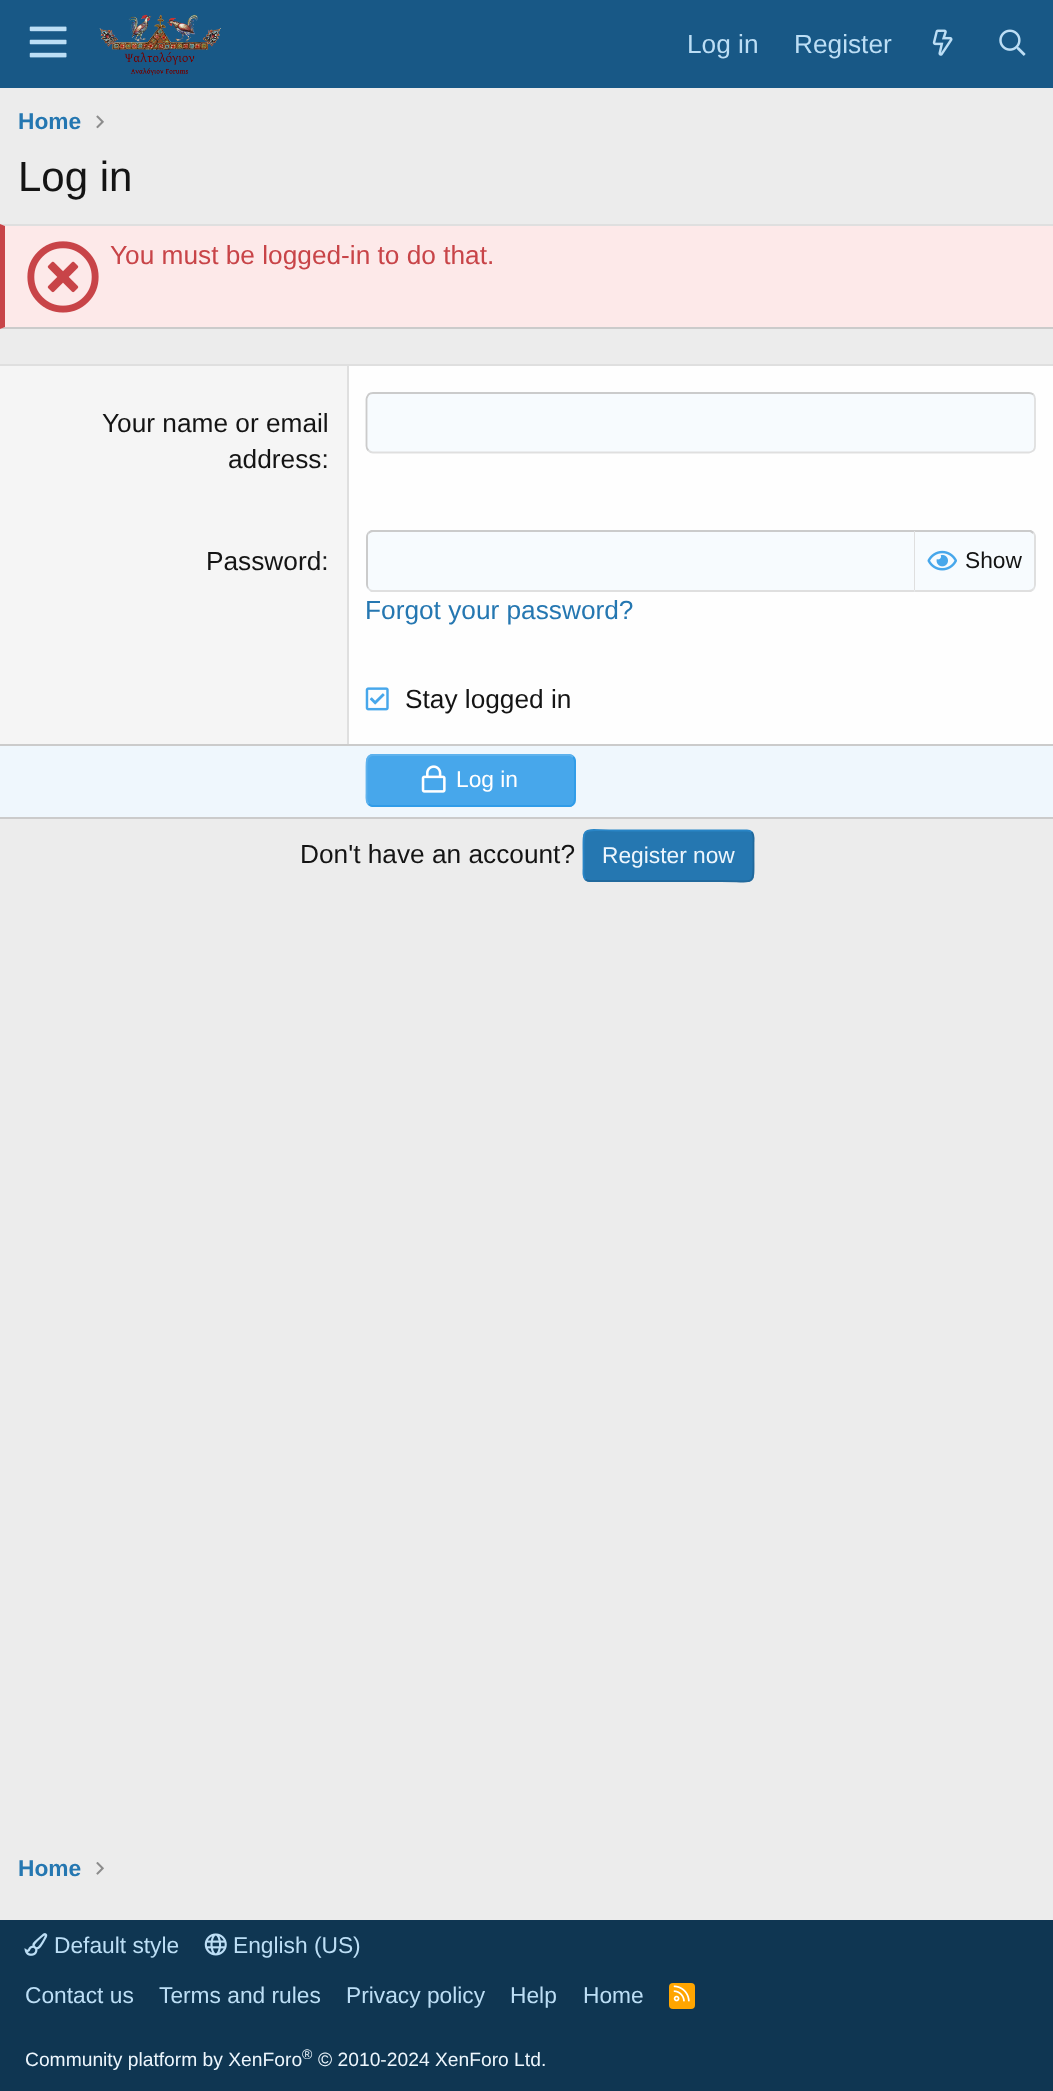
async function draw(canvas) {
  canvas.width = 1053
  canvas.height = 2091
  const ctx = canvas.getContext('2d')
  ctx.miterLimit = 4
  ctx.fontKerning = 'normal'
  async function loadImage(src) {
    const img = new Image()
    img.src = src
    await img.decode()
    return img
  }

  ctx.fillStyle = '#ececec'
  ctx.fillRect(0, 0, 1053, 2091)
  ctx.fillStyle = '#185886'
  ctx.fillRect(0, 0, 1053, 88)
  ctx.drawImage(await loadImage('image0.png'), 29, 26, 38, 32)
  ctx.drawImage(await loadImage('image1.png'), 99, 14, 122, 62)
  ctx.font = '26.25px Liberation Sans'
  ctx.fillStyle = '#bcdef5'
  ctx.fillText('Log in', 687, 53)
  ctx.fillText('Register', 794, 53)
  ctx.drawImage(await loadImage('image2.png'), 932, 29, 21, 27)
  ctx.drawImage(await loadImage('image3.png'), 999, 29, 27, 27)
  ctx.font = 'bold 22.75px Liberation Sans'
  ctx.fillStyle = '#2577b1'
  ctx.fillText('Home', 18, 129)
  ctx.drawImage(await loadImage('image4.png'), 96, 115, 8, 14)
  ctx.font = '42px Liberation Sans'
  ctx.fillStyle = '#141414'
  ctx.fillText('Log in', 18, 191)
  ctx.fillStyle = '#fde9e9'
  ctx.fillRect(0, 224, 1053, 105)
  ctx.fillStyle = '#dfdfdf'
  ctx.beginPath()
  ctx.moveTo(0, 224)
  ctx.lineTo(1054, 224)
  ctx.lineTo(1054, 226)
  ctx.lineTo(5, 226)
  ctx.closePath()
  ctx.fill()
  ctx.fillStyle = '#cbcbcb'
  ctx.beginPath()
  ctx.moveTo(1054, 329)
  ctx.lineTo(0, 329)
  ctx.lineTo(5, 327)
  ctx.lineTo(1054, 327)
  ctx.closePath()
  ctx.fill()
  ctx.fillStyle = '#c84448'
  ctx.beginPath()
  ctx.moveTo(0, 329)
  ctx.lineTo(0, 224)
  ctx.lineTo(5, 226)
  ctx.lineTo(5, 327)
  ctx.closePath()
  ctx.fill()
  ctx.drawImage(await loadImage('image5.png'), 27, 241, 72, 72)
  ctx.font = '26.25px Liberation Sans'
  ctx.fillText('You must be logged-in to do that.', 110, 264)
  ctx.fillStyle = '#fefefe'
  ctx.fillRect(349, 366, 704, 378)
  ctx.fillStyle = '#dfdfdf'
  ctx.fillRect(0, 364, 1053, 2)
  ctx.fillStyle = '#cbcbcb'
  ctx.fillRect(0, 817, 1053, 2)
  ctx.fillStyle = '#f5f5f5'
  ctx.fillRect(0, 366, 347, 378)
  ctx.fillStyle = '#dfdfdf'
  ctx.fillRect(347, 366, 2, 378)
  ctx.fillStyle = '#141414'
  ctx.fillText('Your name or email', 102, 432)
  ctx.fillText('address:', 228, 468)
  ctx.fillStyle = '#f7fbfe'
  ctx.beginPath()
  ctx.roundRect(366, 392, 670, 61, 7)
  ctx.fill()
  ctx.beginPath()
  ctx.moveTo(1033.5, 394.5)
  ctx.bezierCurveTo(1034.5, 396, 1035, 397.5, 1035, 399)
  ctx.lineTo(1035, 446)
  ctx.bezierCurveTo(1035, 448, 1034.5, 449.5, 1033.5, 450.5)
  ctx.bezierCurveTo(1032, 451.5, 1030.5, 452.5, 1029, 452.5)
  ctx.lineTo(373, 452.5)
  ctx.bezierCurveTo(371, 452.5, 369.5, 451.5, 368.5, 450.5)
  ctx.strokeStyle = '#dfdfdf'
  ctx.lineWidth = 1.8
  ctx.stroke()
  ctx.beginPath()
  ctx.moveTo(368.5, 450.5)
  ctx.bezierCurveTo(367.5, 449.5, 366.5, 448, 366.5, 446)
  ctx.lineTo(366.5, 399)
  ctx.bezierCurveTo(366.5, 397.5, 367.5, 396, 368.5, 394.5)
  ctx.bezierCurveTo(369.5, 393.5, 371, 393, 373, 393)
  ctx.lineTo(1029, 393)
  ctx.bezierCurveTo(1030.5, 393, 1032, 393.5, 1033.5, 394.5)
  ctx.strokeStyle = '#cbcbcb'
  ctx.stroke()
  ctx.fillStyle = '#141414'
  ctx.fillText('Password:', 206, 570)
  ctx.fillStyle = '#f7fbfe'
  ctx.beginPath()
  ctx.roundRect(366, 530, 548, 62, [7, 0, 0, 7])
  ctx.fill()
  ctx.fillStyle = '#cbcbcb'
  ctx.beginPath()
  ctx.moveTo(373, 532)
  ctx.bezierCurveTo(371, 532, 370, 533, 369, 534)
  ctx.lineTo(368, 532)
  ctx.lineTo(371, 530)
  ctx.lineTo(914, 530)
  ctx.lineTo(914, 532)
  ctx.closePath()
  ctx.fill()
  ctx.fillStyle = '#dfdfdf'
  ctx.beginPath()
  ctx.moveTo(914, 592)
  ctx.lineTo(371, 592)
  ctx.lineTo(368, 589)
  ctx.lineTo(369, 588)
  ctx.bezierCurveTo(370, 589, 371, 590, 373, 590)
  ctx.lineTo(914, 590)
  ctx.closePath()
  ctx.fill()
  ctx.fillStyle = '#cbcbcb'
  ctx.beginPath()
  ctx.moveTo(368, 589)
  ctx.bezierCurveTo(367, 588, 366, 586, 366, 584)
  ctx.lineTo(366, 537)
  ctx.bezierCurveTo(366, 535, 367, 533, 368, 532)
  ctx.lineTo(369, 534)
  ctx.bezierCurveTo(368, 534, 368, 536, 368, 537)
  ctx.lineTo(368, 584)
  ctx.bezierCurveTo(368, 585, 368, 587, 369, 588)
  ctx.closePath()
  ctx.fill()
  ctx.fillStyle = '#f7fbfe'
  ctx.beginPath()
  ctx.roundRect(914, 530, 122, 62, [0, 7, 7, 0])
  ctx.fill()
  ctx.fillStyle = '#cbcbcb'
  ctx.beginPath()
  ctx.moveTo(914, 531)
  ctx.lineTo(914, 530)
  ctx.lineTo(1031, 530)
  ctx.lineTo(1034, 532)
  ctx.lineTo(1033, 534)
  ctx.lineTo(1030, 532)
  ctx.lineTo(915, 532)
  ctx.closePath()
  ctx.fill()
  ctx.fillStyle = '#dfdfdf'
  ctx.beginPath()
  ctx.moveTo(1036, 584)
  ctx.lineTo(1036, 537)
  ctx.bezierCurveTo(1036, 535, 1035, 533, 1034, 532)
  ctx.lineTo(1033, 534)
  ctx.bezierCurveTo(1034, 534, 1034, 536, 1034, 537)
  ctx.lineTo(1034, 584)
  ctx.bezierCurveTo(1034, 586, 1034, 587, 1033, 588)
  ctx.lineTo(1034, 590)
  ctx.bezierCurveTo(1035, 588, 1036, 586, 1036, 584)
  ctx.closePath()
  ctx.fill()
  ctx.beginPath()
  ctx.moveTo(914, 592)
  ctx.lineTo(915, 590)
  ctx.lineTo(1029, 590)
  ctx.bezierCurveTo(1030, 590, 1032, 589, 1033, 588)
  ctx.lineTo(1034, 590)
  ctx.lineTo(1031, 592)
  ctx.closePath()
  ctx.fill()
  ctx.beginPath()
  ctx.moveTo(915, 532)
  ctx.lineTo(915, 590)
  ctx.lineTo(914, 591)
  ctx.lineTo(914, 531)
  ctx.closePath()
  ctx.fill()
  ctx.drawImage(await loadImage('image6.png'), 927, 550, 30, 21)
  ctx.font = '22.75px Liberation Sans'
  ctx.fillStyle = '#141414'
  ctx.fillText('Show', 965, 568)
  ctx.font = '26.25px Liberation Sans'
  ctx.fillStyle = '#2577b1'
  ctx.fillText('Forgot your password?', 365, 619)
  ctx.drawImage(await loadImage('image7.png'), 365, 687, 24, 24)
  ctx.fillStyle = '#141414'
  ctx.fillText('Stay logged in', 405, 708)
  ctx.fillStyle = '#eff7fd'
  ctx.fillRect(0, 746, 1053, 71)
  ctx.fillStyle = '#cbcbcb'
  ctx.fillRect(0, 744, 1053, 2)
  ctx.fillStyle = '#47a7eb'
  ctx.beginPath()
  ctx.roundRect(366, 754, 210, 53, 7)
  ctx.fill()
  ctx.beginPath()
  ctx.moveTo(573, 757)
  ctx.bezierCurveTo(576, 759.5, 575, 764.5, 575, 767.5)
  ctx.lineTo(575, 793.5)
  ctx.bezierCurveTo(575, 798, 575.5, 806, 569, 806)
  ctx.lineTo(372, 806)
  ctx.bezierCurveTo(370.5, 805.5, 369.5, 805, 368.5, 804)
  ctx.strokeStyle = '#309ce8'
  ctx.stroke()
  ctx.beginPath()
  ctx.moveTo(368.5, 804)
  ctx.bezierCurveTo(365.5, 801.5, 366.5, 796.5, 366.5, 793.5)
  ctx.lineTo(366.5, 767.5)
  ctx.bezierCurveTo(366.5, 763, 366, 755, 373, 755)
  ctx.lineTo(569.5, 755)
  ctx.bezierCurveTo(571, 755.5, 572, 756, 573, 757)
  ctx.strokeStyle = '#5eb2ed'
  ctx.stroke()
  ctx.drawImage(await loadImage('image8.png'), 421, 765, 25, 28)
  ctx.font = '22.75px Liberation Sans'
  ctx.fillStyle = '#fff'
  ctx.fillText('Log in', 456, 787)
  ctx.font = '26.25px Liberation Sans'
  ctx.fillStyle = '#141414'
  ctx.fillText('Don\'t have an account?', 300, 863)
  ctx.fillStyle = '#2577b1'
  ctx.beginPath()
  ctx.roundRect(583, 830, 171, 52, 7)
  ctx.fill()
  ctx.beginPath()
  ctx.moveTo(751.5, 832)
  ctx.bezierCurveTo(754.5, 835, 753.5, 839.5, 753.5, 843)
  ctx.lineTo(753.5, 856)
  ctx.bezierCurveTo(753.5, 887.5, 756.5, 881, 721, 881)
  ctx.lineTo(590, 881)
  ctx.bezierCurveTo(588, 881, 586.5, 880.5, 585.5, 879.5)
  ctx.strokeStyle = '#21699c'
  ctx.stroke()
  ctx.beginPath()
  ctx.moveTo(585.5, 879.5)
  ctx.bezierCurveTo(582.5, 876.5, 583.5, 872, 583.5, 868.5)
  ctx.lineTo(583.5, 856)
  ctx.bezierCurveTo(583.5, 824, 580.5, 830.5, 616, 830.5)
  ctx.lineTo(747, 830.5)
  ctx.bezierCurveTo(749, 830.5, 750.5, 831, 751.5, 832)
  ctx.strokeStyle = '#2985c6'
  ctx.stroke()
  ctx.font = '22.75px Liberation Sans'
  ctx.fillStyle = '#edf6fd'
  ctx.fillText('Register now', 602, 863)
  ctx.font = 'bold 22.75px Liberation Sans'
  ctx.fillStyle = '#2577b1'
  ctx.fillText('Home', 18, 1876)
  ctx.drawImage(await loadImage('image9.png'), 96, 1862, 8, 13)
  ctx.fillStyle = '#0f3652'
  ctx.fillRect(0, 1920, 1053, 171)
  ctx.drawImage(await loadImage('image10.png'), 24, 1933, 24, 23)
  ctx.font = '22.75px Liberation Sans'
  ctx.fillStyle = '#bcdef5'
  ctx.fillText('Default style', 54, 1953)
  ctx.drawImage(await loadImage('image11.png'), 204, 1933, 23, 23)
  ctx.fillText('English (US)', 233, 1953)
  ctx.fillText('Contact us', 25, 2003)
  ctx.fillText('Terms and rules', 159, 2003)
  ctx.fillText('Privacy policy', 346, 2003)
  ctx.fillText('Help', 510, 2003)
  ctx.fillText('Home', 583, 2003)
  ctx.fillStyle = '#ffa500'
  ctx.beginPath()
  ctx.roundRect(669, 1983, 26, 26, 4)
  ctx.fill()
  ctx.drawImage(await loadImage('image12.png'), 673, 1985, 17, 17)
  ctx.font = '19.25px Liberation Sans'
  ctx.fillStyle = '#edf6fd'
  ctx.fillText('Community platform by XenForo', 25, 2066)
  ctx.font = '14px Liberation Sans'
  ctx.fillText('®', 302, 2059)
  ctx.font = '19.25px Liberation Sans'
  ctx.fillText('© 2010-2024 XenForo Ltd.', 318, 2066)
}

draw(document.querySelector('canvas'))
